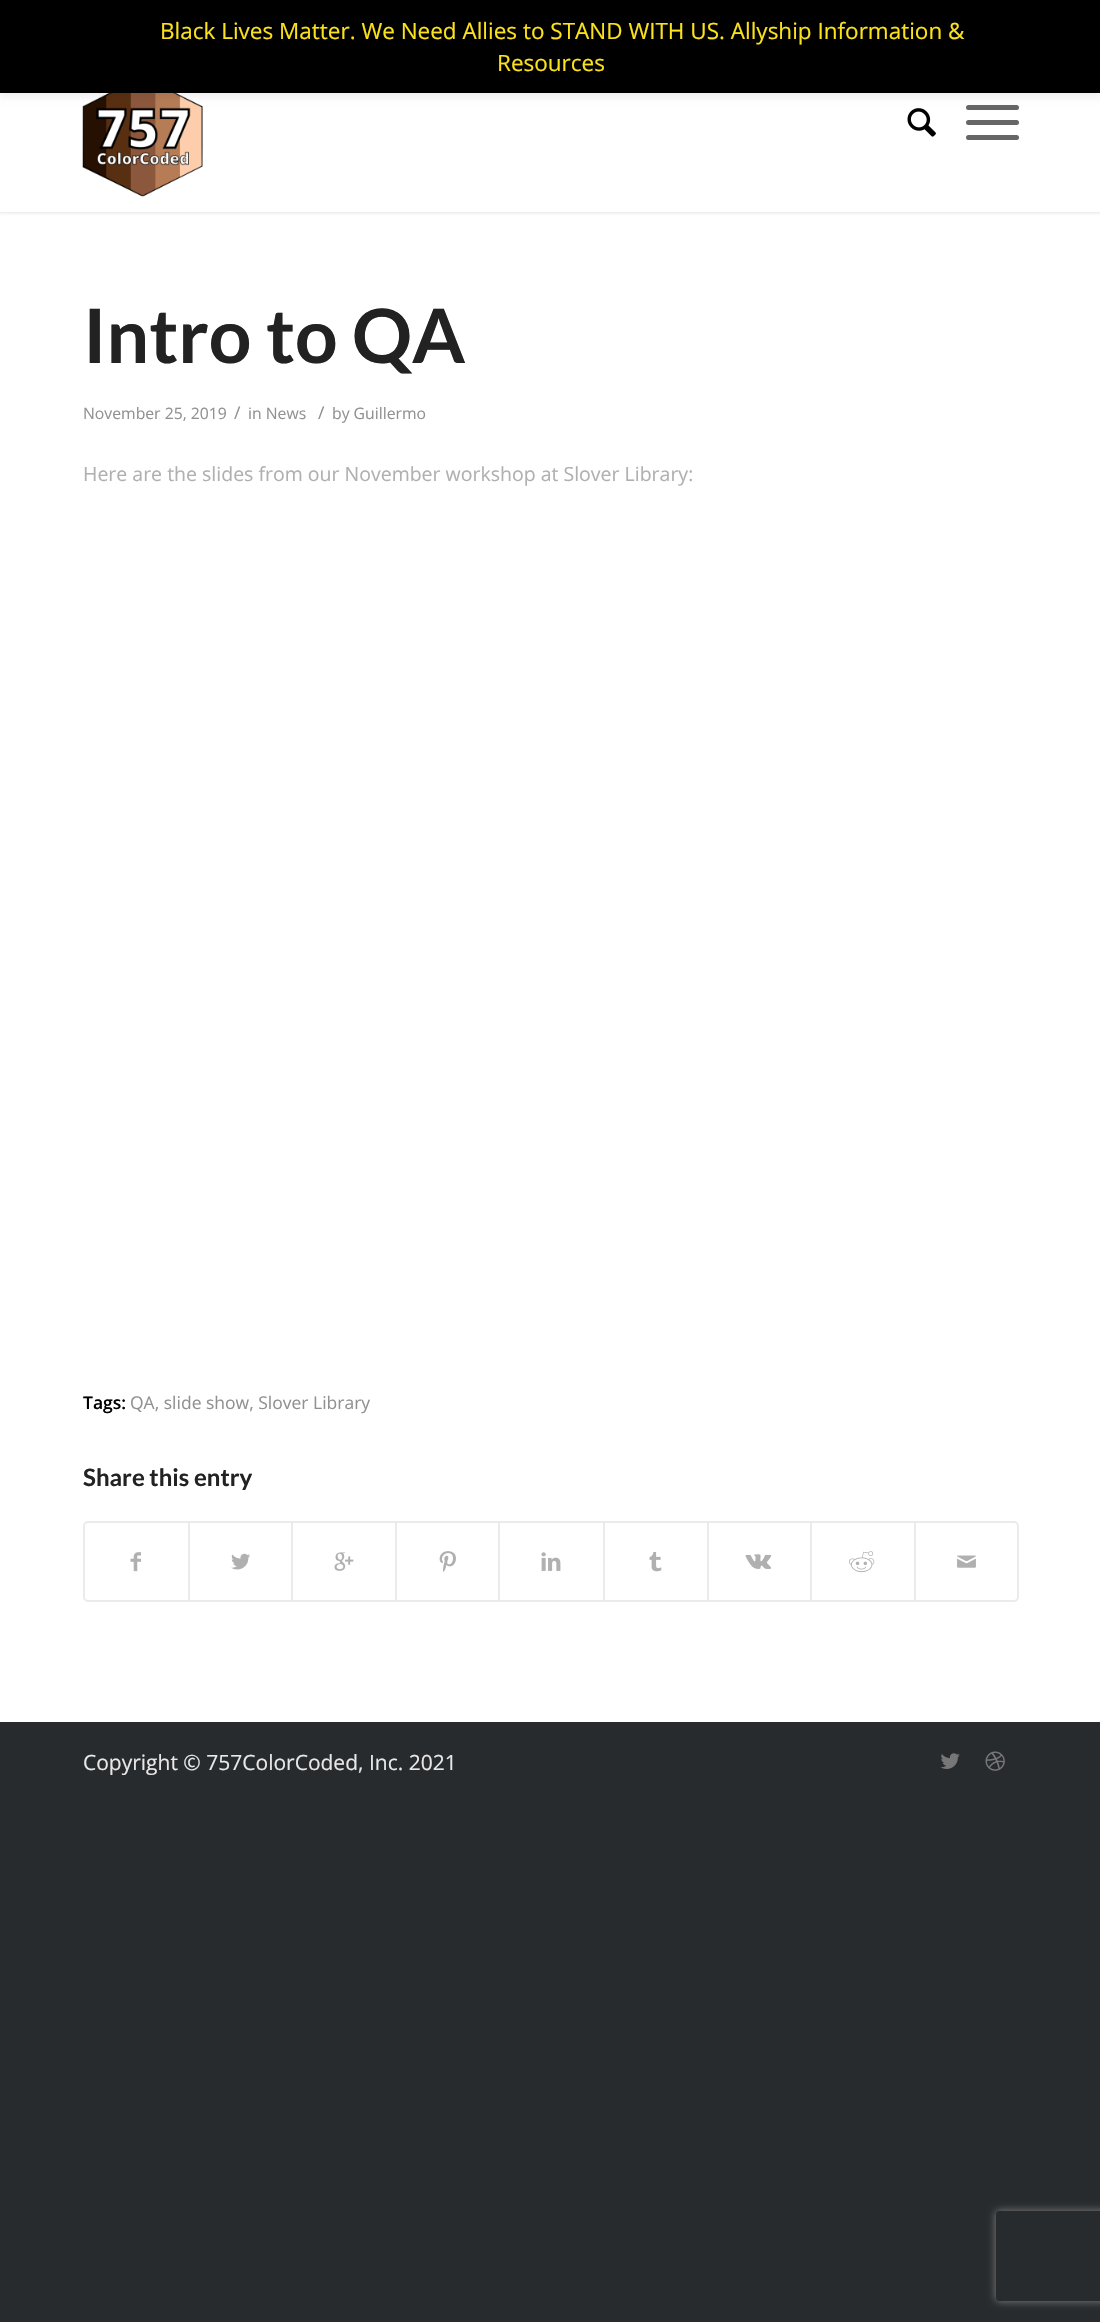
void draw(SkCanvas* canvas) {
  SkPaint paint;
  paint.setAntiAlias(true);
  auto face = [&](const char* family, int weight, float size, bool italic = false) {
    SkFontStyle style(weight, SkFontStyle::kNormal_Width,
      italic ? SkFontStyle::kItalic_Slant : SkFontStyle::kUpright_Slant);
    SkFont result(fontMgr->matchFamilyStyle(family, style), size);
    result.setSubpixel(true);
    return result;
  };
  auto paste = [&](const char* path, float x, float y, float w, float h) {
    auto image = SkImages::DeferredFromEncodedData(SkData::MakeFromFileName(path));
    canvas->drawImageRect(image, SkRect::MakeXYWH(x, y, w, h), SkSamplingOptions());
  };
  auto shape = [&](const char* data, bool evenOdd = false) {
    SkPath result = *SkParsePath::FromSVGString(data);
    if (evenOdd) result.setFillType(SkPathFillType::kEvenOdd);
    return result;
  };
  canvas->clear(0xff282b2e);
  paint.setColor(0xffffffff);
  canvas->drawRect(SkRect::MakeXYWH(0, 212, 1100, 1510), paint);
  paint.setColor(0x1a000000);
  paint.setMaskFilter(SkMaskFilter::MakeBlur(kNormal_SkBlurStyle, 1.5f));
  canvas->drawRect(SkRect::MakeXYWH(-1, 60, 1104, 153), paint);
  paint.setMaskFilter(nullptr);
  paint.setColor(0xffffffff);
  canvas->drawRect(SkRect::MakeXYWH(0, 93, 1100, 119), paint);
  paste("img/1.png", 82, 93, 121, 104);
  paint.setColor(0xff666666);
  canvas->drawRoundRect(SkRect::MakeXYWH(966, 105, 53, 5), 2.5f, 2.5f, paint);
  paint.setColor(0x0d000000);
  paint.setMaskFilter(SkMaskFilter::MakeBlur(kNormal_SkBlurStyle, 3));
  canvas->drawRect(SkRect::MakeXYWH(0, 5, 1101, 93), paint);
  paint.setMaskFilter(nullptr);
  paint.setColor(0xff000000);
  canvas->drawRect(SkRect::MakeXYWH(0, 0, 1100, 93), paint);
  paste("img/2.png", 907, 108, 29, 29);
  paint.setColor(0xff666666);
  canvas->drawRoundRect(SkRect::MakeXYWH(966, 120, 53, 5), 2.5f, 2.5f, paint);
  canvas->drawRoundRect(SkRect::MakeXYWH(966, 135, 53, 5), 2.5f, 2.5f, paint);
  paint.setStroke(true);
  paint.setStrokeWidth(2);
  paint.setColor(0xffebebeb);
  canvas->drawRoundRect(SkRect::MakeXYWH(84, 1522, 934, 79), 4, 4, paint);
  paste("img/3.png", 130, 1552, 11, 20);
  paint.setStroke(false);
  canvas->drawRect(SkRect::MakeXYWH(188, 1523, 2, 78), paint);
  paste("img/4.png", 231, 1553, 19, 17);
  canvas->drawRect(SkRect::MakeXYWH(291, 1523, 2, 78), paint);
  paste("img/5.png", 334, 1552, 20, 19);
  canvas->drawRect(SkRect::MakeXYWH(395, 1523, 2, 78), paint);
  paste("img/6.png", 439, 1551, 17, 21);
  canvas->drawRect(SkRect::MakeXYWH(498, 1523, 2, 78), paint);
  paste("img/7.png", 541, 1552, 20, 19);
  canvas->drawRect(SkRect::MakeXYWH(603, 1523, 2, 78), paint);
  paste("img/8.png", 649, 1552, 13, 20);
  canvas->drawRect(SkRect::MakeXYWH(707, 1523, 2, 78), paint);
  paste("img/9.png", 745, 1554, 27, 15);
  canvas->drawRect(SkRect::MakeXYWH(810, 1523, 2, 78), paint);
  paste("img/10.png", 849, 1551, 26, 22);
  canvas->drawRect(SkRect::MakeXYWH(914, 1523, 2, 78), paint);
  paste("img/11.png", 957, 1555, 19, 13);
  paste("img/12.png", 940, 1753, 20, 16);
  paste("img/13.png", 985, 1751, 20, 20);
  canvas->save();
  canvas->clipPath(shape("M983 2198H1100V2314H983ZM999 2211H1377C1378.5 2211 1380 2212.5 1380 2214V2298C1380 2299.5 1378.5 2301 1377 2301H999C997.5 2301 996 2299.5 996 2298V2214C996 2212.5 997.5 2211 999 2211Z", true), true);
  paint.setColor(0xff808080);
  paint.setMaskFilter(SkMaskFilter::MakeBlur(kNormal_SkBlurStyle, 4));
  canvas->drawRoundRect(SkRect::MakeXYWH(996, 2211, 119, 90), 3, 3, paint);
  paint.setMaskFilter(nullptr);
  canvas->restore();
  auto f0 = face("Open Sans", 400, 22.5f);
  paint.setColor(0xfffce21b);
  canvas->drawString("Black Lives Matter. We Need Allies to STAND WITH US. Allyship Information &", 160, 39, f0, paint);
  canvas->drawString("Resources", 497, 71, f0, paint);
  auto f1 = face("Lato", 700, 75);
  paint.setColor(0xff222222);
  canvas->drawString("Intro to QA", 83, 363, f1, paint);
  auto f2 = face("Open Sans", 400, 15.75f);
  paint.setColor(0xff919191);
  canvas->drawString("November 25, 2019", 83, 419, f2, paint);
  auto f3 = face("Open Sans", 400, 17.5f);
  canvas->drawString("/", 234, 419, f3, paint);
  canvas->drawString("in News", 248, 419, f2, paint);
  canvas->drawString("/", 318, 419, f3, paint);
  canvas->drawString("by Guillermo", 332, 419, f2, paint);
  auto f4 = face("Open Sans", 400, 19.5f);
  paint.setColor(0xffb0b0b0);
  canvas->drawString("Here are the slides from our November workshop at Slover Library:", 83, 481, f4, paint);
  auto f5 = face("Open Sans", 600, 17.5f);
  paint.setColor(0xff000000);
  canvas->drawString("Tags:", 83, 1409, f5, paint);
  paint.setColor(0xff919191);
  canvas->drawString("QA, slide show, Slover Library", 130, 1409, f3, paint);
  auto f6 = face("Lato", 700, 24);
  paint.setColor(0xff222222);
  canvas->drawString("Share this entry", 83, 1486, f6, paint);
  auto f7 = face("Open Sans", 400, 21);
  paint.setColor(0xffe8e8e8);
  canvas->drawString("Copyright © 757ColorCoded, Inc. 2021", 83, 1770, f7, paint);
}
